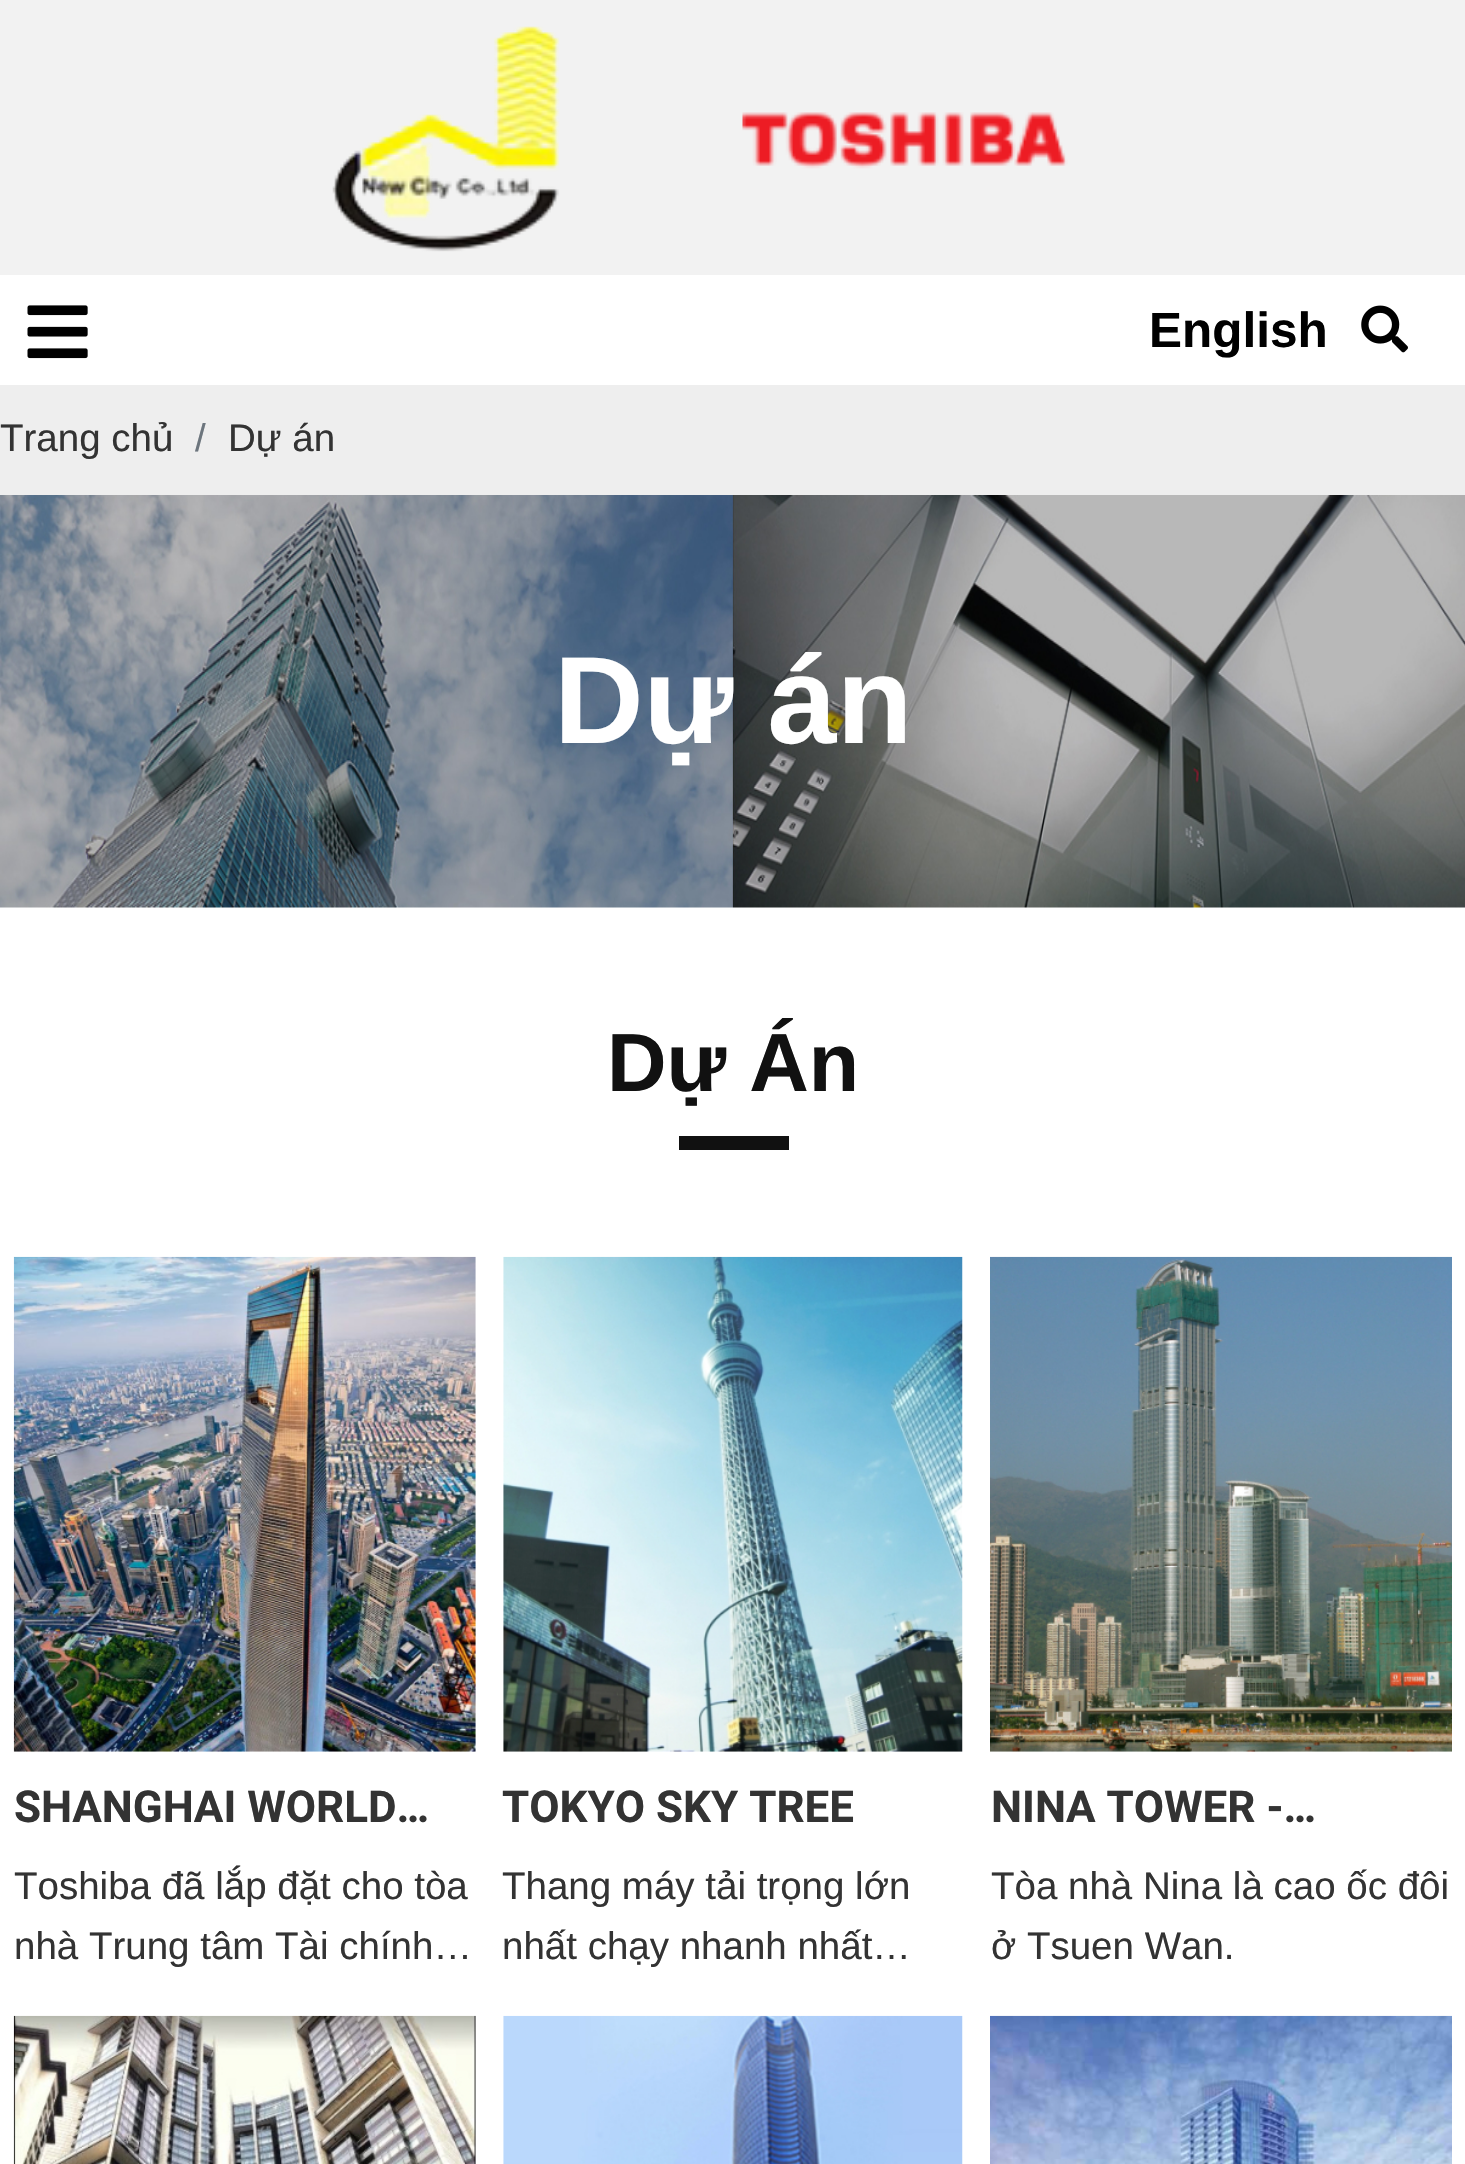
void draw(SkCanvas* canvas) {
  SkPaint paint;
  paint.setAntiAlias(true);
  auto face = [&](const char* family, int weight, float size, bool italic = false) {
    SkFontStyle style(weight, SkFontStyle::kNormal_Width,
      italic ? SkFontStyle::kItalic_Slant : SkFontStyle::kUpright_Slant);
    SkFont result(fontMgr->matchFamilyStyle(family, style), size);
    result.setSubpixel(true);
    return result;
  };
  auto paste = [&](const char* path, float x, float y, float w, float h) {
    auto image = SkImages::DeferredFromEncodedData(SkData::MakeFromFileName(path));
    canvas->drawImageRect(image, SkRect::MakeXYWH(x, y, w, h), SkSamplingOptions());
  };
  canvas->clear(0xffffffff);
  paint.setColor(0xfff2f2f2);
  canvas->drawRect(SkRect::MakeXYWH(0, 0, 1465, 275), paint);
  paste("img/1.png", 332, 26, 228, 226);
  paste("img/2.png", 742, 112, 326, 57);
  paste("img/3.png", 27, 305, 61, 54);
  paste("img/4.png", 1361, 305, 47, 48);
  paint.setColor(0xffeeeeee);
  canvas->drawRect(SkRect::MakeXYWH(0, 385, 1465, 110), paint);
  paste("img/5.png", 0, 495, 1465, 413);
  paint.setColor(0xff111111);
  canvas->drawRect(SkRect::MakeXYWH(679, 1136, 110, 14), paint);
  paste("img/6.png", 13, 1256, 463, 496);
  paste("img/7.png", 503, 1256, 460, 496);
  paste("img/8.png", 990, 1256, 462, 496);
  paste("img/9.png", 13, 2015, 463, 149);
  paste("img/10.png", 503, 2015, 460, 149);
  paste("img/11.png", 990, 2015, 462, 149);
  auto f0 = face("Liberation Sans", 700, 49.5f);
  paint.setColor(0xff000000);
  canvas->drawString("English", 1149, 347, f0, paint);
  auto f1 = face("Liberation Sans", 400, 38.5f);
  paint.setColor(0xff333333);
  canvas->drawString("Trang chủ", 0, 451, f1, paint);
  paint.setColor(0xff6c757d);
  canvas->drawString("/", 195, 451, f1, paint);
  paint.setColor(0xff333333);
  canvas->drawString("Dự án", 228, 451, f1, paint);
  auto f2 = face("Liberation Sans", 700, 124);
  paint.setColor(0xffffffff);
  canvas->drawString("Dự án", 554, 743, f2, paint);
  auto f3 = face("Liberation Sans", 700, 82.5f);
  paint.setColor(0xff111111);
  canvas->drawString("Dự Án", 607, 1091, f3, paint);
  auto f4 = face("Roboto", 700, 44);
  paint.setColor(0xff333333);
  canvas->drawString("SHANGHAI WORLD…", 14, 1822, f4, paint);
  canvas->drawString("Toshiba đã lắp đặt cho tòa", 14, 1899, f1, paint);
  canvas->drawString("nhà Trung tâm Tài chính…", 14, 1959, f1, paint);
  canvas->drawString("TOKYO SKY TREE", 502, 1822, f4, paint);
  canvas->drawString("Thang máy tải trọng lớn", 502, 1899, f1, paint);
  canvas->drawString("nhất chạy nhanh nhất…", 502, 1959, f1, paint);
  canvas->drawString("NINA TOWER -…", 991, 1822, f4, paint);
  canvas->drawString("Tòa nhà Nina là cao ốc đôi", 991, 1899, f1, paint);
  canvas->drawString("ở Tsuen Wan.", 991, 1959, f1, paint);
}
